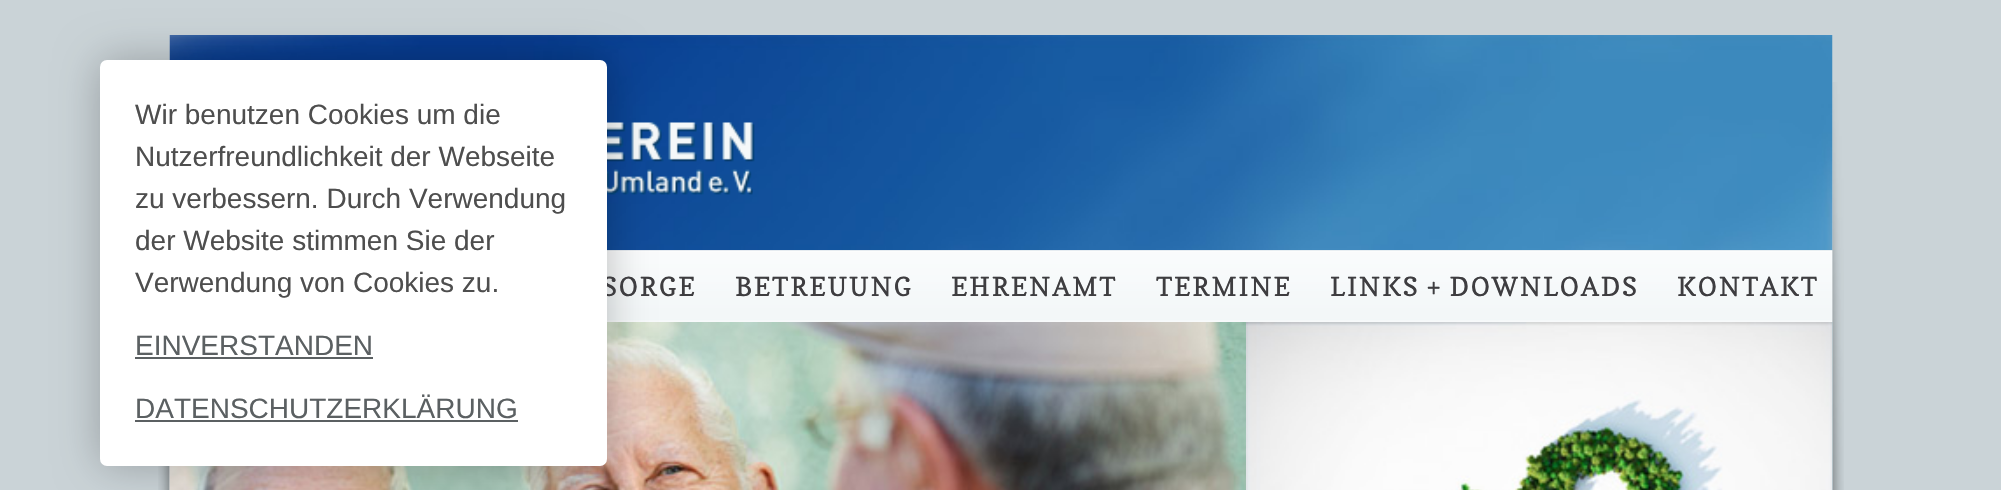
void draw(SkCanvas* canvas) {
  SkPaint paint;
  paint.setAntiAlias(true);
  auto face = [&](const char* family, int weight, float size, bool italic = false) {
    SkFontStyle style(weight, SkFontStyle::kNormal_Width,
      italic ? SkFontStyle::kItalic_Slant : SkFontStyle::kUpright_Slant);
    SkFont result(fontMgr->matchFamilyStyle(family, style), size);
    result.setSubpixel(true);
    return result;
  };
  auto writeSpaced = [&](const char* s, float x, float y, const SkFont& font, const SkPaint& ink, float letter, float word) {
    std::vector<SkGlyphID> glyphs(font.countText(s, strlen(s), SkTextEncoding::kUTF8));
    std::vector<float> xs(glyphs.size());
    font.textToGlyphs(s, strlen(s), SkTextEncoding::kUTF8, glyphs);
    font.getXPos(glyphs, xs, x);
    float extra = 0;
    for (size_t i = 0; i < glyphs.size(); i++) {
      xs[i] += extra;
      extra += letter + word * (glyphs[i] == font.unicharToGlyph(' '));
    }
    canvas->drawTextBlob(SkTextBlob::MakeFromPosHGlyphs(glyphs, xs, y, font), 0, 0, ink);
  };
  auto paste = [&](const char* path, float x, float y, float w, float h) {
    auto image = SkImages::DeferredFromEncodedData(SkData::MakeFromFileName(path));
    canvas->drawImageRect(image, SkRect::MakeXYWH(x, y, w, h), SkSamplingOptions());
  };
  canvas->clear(0xffcad3d7);
  paste("img/1.png", 158, 82, 1686, 408);
  paste("img/2.png", 169, 35, 1664, 216);
  paste("img/3.png", 607, 122, 148, 73);
  paste("img/4.png", 607, 250, 1226, 72);
  paste("img/5.png", 169, 322, 1664, 168);
  paste("img/7.png", 169, 322, 1077, 168);
  paint.setColor(0x40000000);
  paint.setMaskFilter(SkMaskFilter::MakeBlur(kNormal_SkBlurStyle, 22));
  canvas->drawRoundRect(SkRect::MakeXYWH(100, 60, 507, 406), 7, 7, paint);
  paint.setMaskFilter(nullptr);
  paste("img/6.png", 1246, 322, 587, 168);
  auto f0 = face("Copse", 400, 26.25f);
  paint.setColor(0xff3e3d40);
  writeSpaced("SORGE", 602, 296, f0, paint, 1.75f, 0);
  paint.setColor(0xffffffff);
  canvas->drawRoundRect(SkRect::MakeXYWH(100, 60, 507, 406), 7, 7, paint);
  auto f1 = face("Liberation Sans", 400, 28);
  paint.setColor(0xff5b6062);
  canvas->drawString("DATENSCHUTZERKLÄRUNG", 135, 418, f1, paint);
  canvas->drawRect(SkRect::MakeXYWH(135, 420, 383, 2), paint);
  canvas->drawString("EINVERSTANDEN", 135, 355, f1, paint);
  canvas->drawRect(SkRect::MakeXYWH(135, 357, 238, 2), paint);
  paint.setColor(0xff4e4e4e);
  {
    const struct { const char* s; float x, y; } items[] = {
      {"Verwendung von Cookies zu.", 135, 292},
      {"der Website stimmen Sie der", 135, 250},
      {"zu verbessern. Durch Verwendung", 135, 208},
      {"Nutzerfreundlichkeit der Webseite", 135, 166},
      {"Wir benutzen Cookies um die", 135, 124},
    };
    for (auto [s, x, y] : items) {
      canvas->drawString(s, x, y, f1, paint);
    }
  }
  paint.setColor(0xff3e3d40);
  {
    const struct { const char* s; float x, y; } items[] = {
      {"BETREUUNG", 735, 296},
      {"EHRENAMT", 951, 296},
      {"TERMINE", 1156, 296},
      {"LINKS + DOWNLOADS", 1330, 296},
      {"KONTAKT", 1677, 296},
    };
    for (auto [s, x, y] : items) {
      writeSpaced(s, x, y, f0, paint, 1.75f, 0);
    }
  }
}
